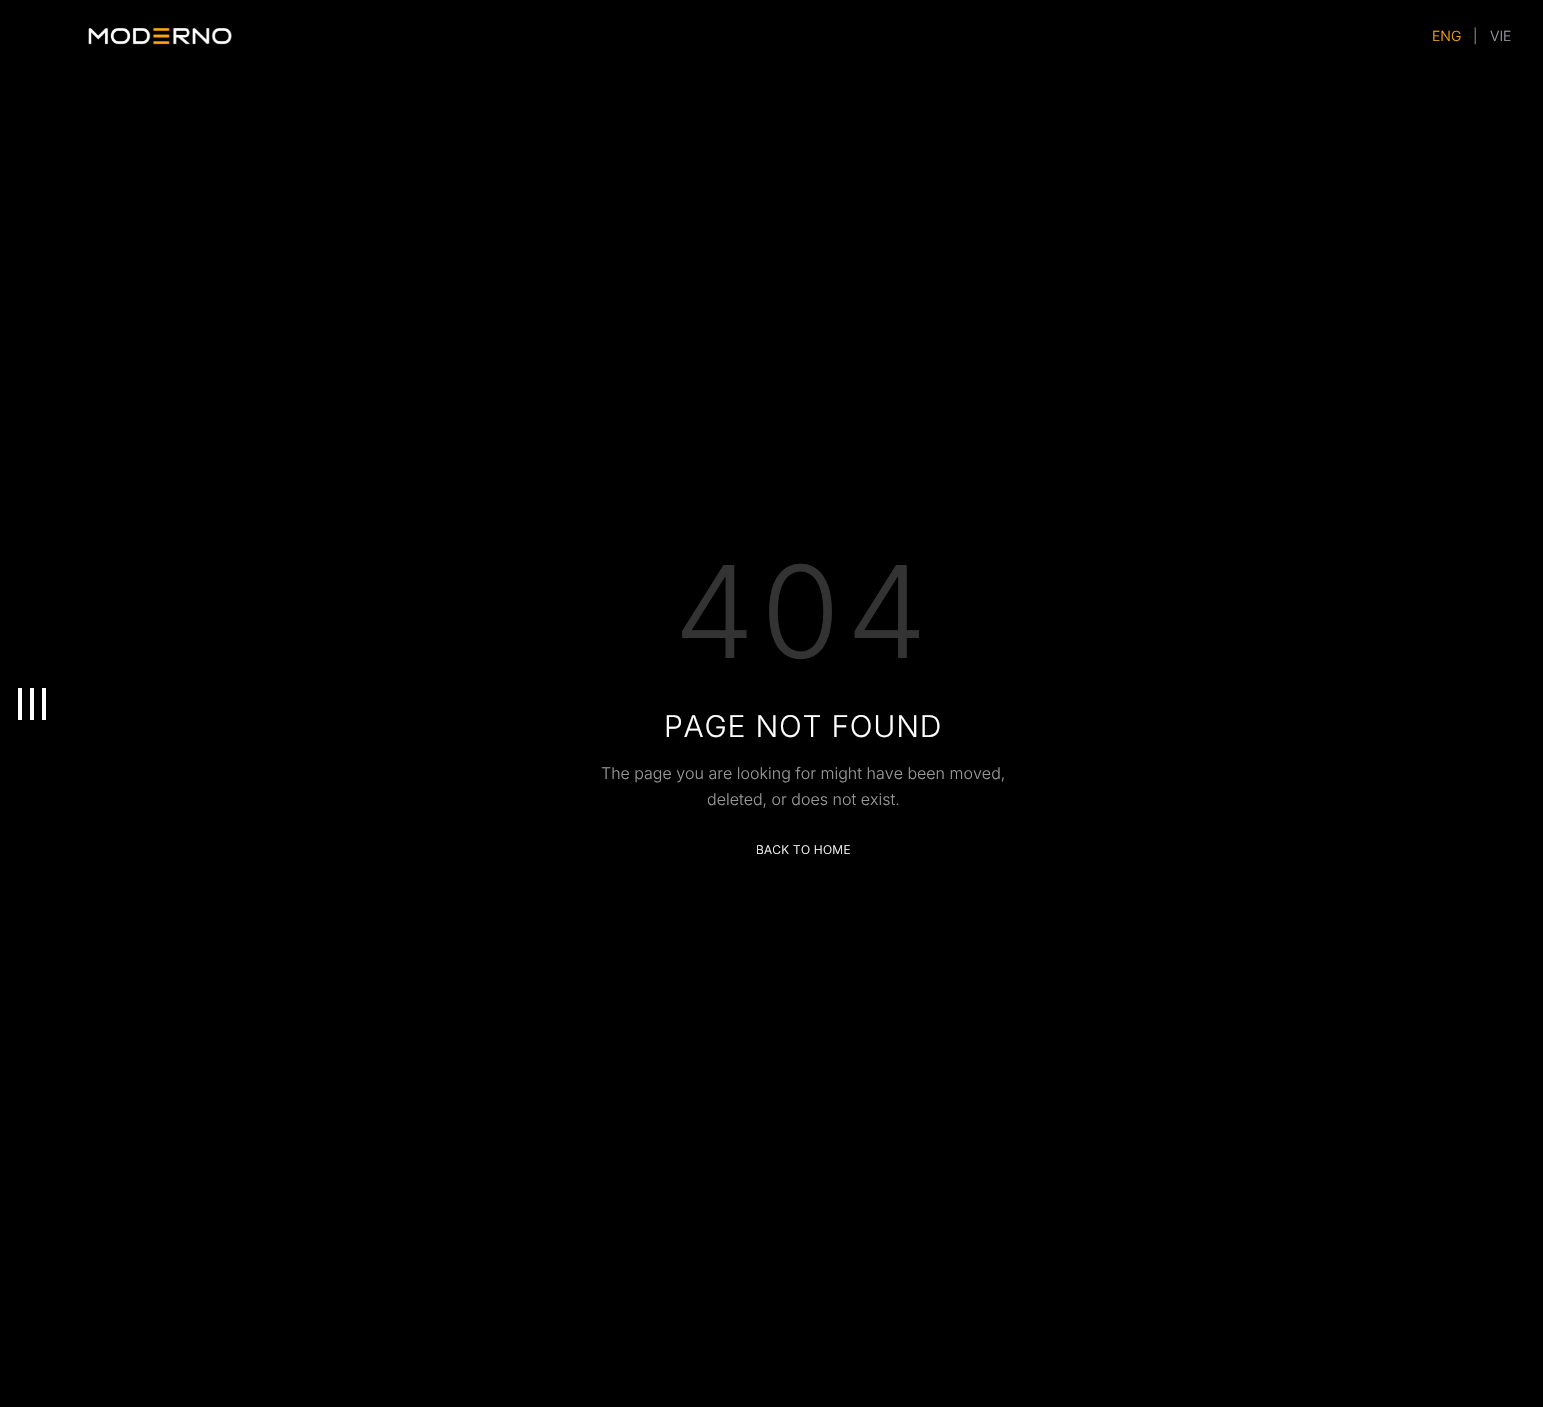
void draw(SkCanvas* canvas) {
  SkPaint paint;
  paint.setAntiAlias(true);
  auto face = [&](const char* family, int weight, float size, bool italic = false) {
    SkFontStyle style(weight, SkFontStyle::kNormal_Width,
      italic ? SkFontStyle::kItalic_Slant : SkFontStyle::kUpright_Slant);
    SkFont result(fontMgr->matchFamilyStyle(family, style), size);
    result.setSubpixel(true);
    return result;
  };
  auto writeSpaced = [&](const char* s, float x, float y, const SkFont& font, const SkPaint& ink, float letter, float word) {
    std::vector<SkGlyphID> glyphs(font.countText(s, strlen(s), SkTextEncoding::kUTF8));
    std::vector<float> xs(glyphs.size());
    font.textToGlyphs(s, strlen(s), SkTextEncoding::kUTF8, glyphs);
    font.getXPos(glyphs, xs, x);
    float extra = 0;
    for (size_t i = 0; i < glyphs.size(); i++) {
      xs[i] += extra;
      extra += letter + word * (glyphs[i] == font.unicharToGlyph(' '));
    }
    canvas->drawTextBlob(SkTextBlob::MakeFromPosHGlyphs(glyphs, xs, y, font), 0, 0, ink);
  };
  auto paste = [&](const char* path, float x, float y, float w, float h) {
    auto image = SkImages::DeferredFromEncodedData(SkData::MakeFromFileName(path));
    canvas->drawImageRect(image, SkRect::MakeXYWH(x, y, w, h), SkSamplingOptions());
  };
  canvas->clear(0xff000000);
  paste("img/1.png", 88, 28, 144, 17);
  {
    const struct { float x, y, w, h; SkColor color; } items[] = {
      {18, 688, 4, 32, 0xffffffff},
      {30, 688, 4, 32, 0xffffffff},
      {42, 688, 4, 32, 0xffffffff},
    };
    for (auto [x, y, w, h, color] : items) {
      paint.setColor(color);
      canvas->drawRect(SkRect::MakeXYWH(x, y, w, h), paint);
    }
  }
  auto f0 = face("Inter", 300, 14);
  paint.setColor(0xfffaa819);
  canvas->drawString("ENG", 1432, 41, f0, paint);
  paint.setColor(0xff999999);
  canvas->drawString("|", 1473, 41, f0, paint);
  paint.setColor(0xffa1a1aa);
  canvas->drawString("VIE", 1490, 41, f0, paint);
  auto f1 = face("Inter", 300, 128);
  paint.setColor(0xff333333);
  writeSpaced("404", 674, 658, f1, paint, 6.5f, 0);
  auto f2 = face("Inter", 300, 30);
  paint.setColor(0xffffffff);
  writeSpaced("PAGE NOT FOUND", 664, 737, f2, paint, 0.75f, 0);
  auto f3 = face("Inter", 300, 16);
  paint.setColor(0xff999999);
  canvas->drawString("The page you are looking for might have been moved,", 601, 779, f3, paint);
  canvas->drawString("deleted, or does not exist.", 707, 805, f3, paint);
  auto f4 = face("Inter", 300, 12);
  paint.setColor(0xffffffff);
  writeSpaced("BACK TO HOME", 756, 854, f4, paint, 0.25f, 0);
}
